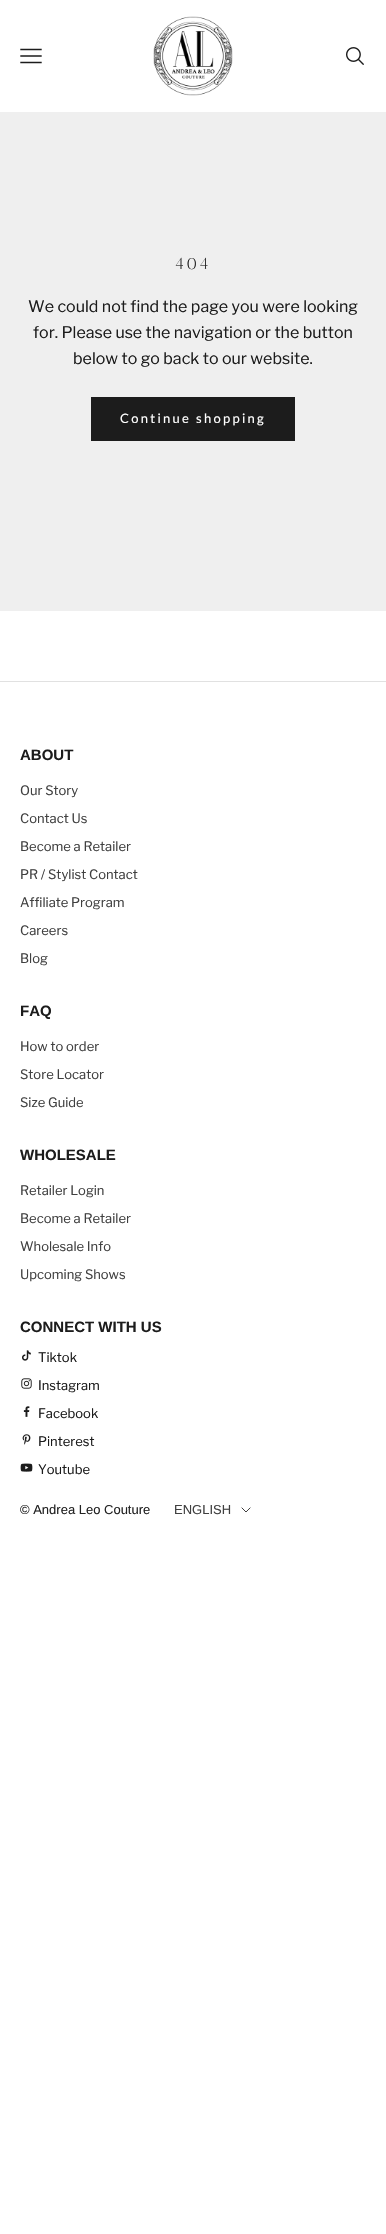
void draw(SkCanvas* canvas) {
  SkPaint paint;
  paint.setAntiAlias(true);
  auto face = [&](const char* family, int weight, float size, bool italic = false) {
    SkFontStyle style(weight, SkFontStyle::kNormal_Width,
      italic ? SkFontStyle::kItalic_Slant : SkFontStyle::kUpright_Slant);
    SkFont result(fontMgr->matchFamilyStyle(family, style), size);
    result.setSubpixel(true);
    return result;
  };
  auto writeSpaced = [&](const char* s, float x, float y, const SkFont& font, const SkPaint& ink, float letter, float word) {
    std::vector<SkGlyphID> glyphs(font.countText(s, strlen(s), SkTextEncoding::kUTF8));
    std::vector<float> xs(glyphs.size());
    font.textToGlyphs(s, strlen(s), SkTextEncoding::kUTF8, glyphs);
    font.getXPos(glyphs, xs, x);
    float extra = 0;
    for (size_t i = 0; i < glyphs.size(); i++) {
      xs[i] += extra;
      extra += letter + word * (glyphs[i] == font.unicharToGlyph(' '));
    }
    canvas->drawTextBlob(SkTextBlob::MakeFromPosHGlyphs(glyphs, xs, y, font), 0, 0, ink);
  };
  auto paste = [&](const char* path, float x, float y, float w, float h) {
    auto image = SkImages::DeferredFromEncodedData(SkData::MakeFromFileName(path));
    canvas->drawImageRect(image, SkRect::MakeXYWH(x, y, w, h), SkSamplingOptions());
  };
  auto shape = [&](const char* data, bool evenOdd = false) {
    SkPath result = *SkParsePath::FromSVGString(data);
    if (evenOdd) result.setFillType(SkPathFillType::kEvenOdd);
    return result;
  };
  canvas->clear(0xffffffff);
  paint.setStroke(true);
  paint.setStrokeWidth(1.4f);
  paint.setStrokeCap(SkPaint::kSquare_Cap);
  paint.setColor(0xff1c1c1c);
  canvas->drawPath(shape("M21 62.5H41M21 56H41M21 49.5H41"), paint);
  paste("img/1.png", 153, 16, 80, 80);
  paste("img/2.png", 346, 47, 18, 18);
  paint.setStroke(false);
  paint.setColor(0xffefefef);
  canvas->drawRect(SkRect::MakeXYWH(0, 112, 386, 499), paint);
  paint.setColor(0xff1c1c1c);
  canvas->drawRect(SkRect::MakeXYWH(91.5f, 397.5f, 203, 43), paint);
  paint.setStroke(true);
  paint.setStrokeWidth(1);
  paint.setStrokeCap(SkPaint::kButt_Cap);
  canvas->drawRect(SkRect::MakeXYWH(91.5f, 397.5f, 203, 43), paint);
  paint.setStroke(false);
  paint.setColor(0xffe1e1e1);
  canvas->drawRect(SkRect::MakeXYWH(0, 681, 386, 1), paint);
  paste("img/3.png", 22, 1350, 9, 11);
  paste("img/4.png", 21, 1378, 11, 11);
  paste("img/5.png", 23, 1406, 7, 11);
  paste("img/6.png", 22, 1434, 9, 11);
  paste("img/7.png", 20, 1463, 13, 9);
  paint.setStroke(true);
  paint.setStrokeCap(SkPaint::kSquare_Cap);
  paint.setColor(0xff403f3f);
  canvas->drawPath(shape("M242 1508L246 1512L250 1508"), paint);
  auto f0 = face("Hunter", 400, 16);
  paint.setStroke(false);
  paint.setColor(0xff1c1c1c);
  writeSpaced("404", 175, 269, f0, paint, 3, 0);
  auto f1 = face("Libre Franklin", 400, 16);
  {
    const struct { const char* s; float x, y; } items[] = {
      {"We could not find the page you were looking", 28, 312},
      {"for. Please use the navigation or the button", 33, 338},
      {"below to go back to our website.", 73, 364},
    };
    for (auto [s, x, y] : items) {
      canvas->drawString(s, x, y, f1, paint);
    }
  }
  auto f2 = face("Lato", 400, 13);
  paint.setColor(0xffffffff);
  writeSpaced("Continue shopping", 120, 423, f2, paint, 2.3f, 0);
  auto f3 = face("Liberation Sans", 700, 15);
  paint.setColor(0xff1c1c1c);
  canvas->drawString("ABOUT", 20, 760, f3, paint);
  auto f4 = face("Libre Franklin", 400, 13);
  paint.setColor(0xff404040);
  {
    const struct { const char* s; float x, y; } items[] = {
      {"Our Story", 20, 795},
      {"Contact Us", 20, 823},
      {"Become a Retailer", 20, 851},
      {"PR / Stylist Contact", 20, 879},
      {"Affiliate Program", 20, 907},
      {"Careers", 20, 935},
      {"Blog", 20, 963},
    };
    for (auto [s, x, y] : items) {
      canvas->drawString(s, x, y, f4, paint);
    }
  }
  paint.setColor(0xff1c1c1c);
  canvas->drawString("FAQ", 20, 1016, f3, paint);
  paint.setColor(0xff404040);
  {
    const struct { const char* s; float x, y; } items[] = {
      {"How to order", 20, 1051},
      {"Store Locator", 20, 1079},
      {"Size Guide", 20, 1107},
    };
    for (auto [s, x, y] : items) {
      canvas->drawString(s, x, y, f4, paint);
    }
  }
  paint.setColor(0xff1c1c1c);
  canvas->drawString("WHOLESALE", 20, 1160, f3, paint);
  paint.setColor(0xff404040);
  {
    const struct { const char* s; float x, y; } items[] = {
      {"Retailer Login", 20, 1195},
      {"Become a Retailer", 20, 1223},
      {"Wholesale Info", 20, 1251},
      {"Upcoming Shows", 20, 1279},
    };
    for (auto [s, x, y] : items) {
      canvas->drawString(s, x, y, f4, paint);
    }
  }
  paint.setColor(0xff1c1c1c);
  canvas->drawString("CONNECT WITH US", 20, 1332, f3, paint);
  {
    const struct { const char* s; float x, y; } items[] = {
      {"Tiktok", 38, 1362},
      {"Instagram", 38, 1390},
      {"Facebook", 38, 1418},
      {"Pinterest", 38, 1446},
      {"Youtube", 38, 1474},
    };
    for (auto [s, x, y] : items) {
      canvas->drawString(s, x, y, f4, paint);
    }
  }
  auto f5 = face("Liberation Sans", 400, 13);
  paint.setColor(0xff222222);
  canvas->drawString("© Andrea Leo Couture", 20, 1514, f5, paint);
  paint.setColor(0xff404040);
  canvas->drawString("ENGLISH", 174, 1514, f5, paint);
}
